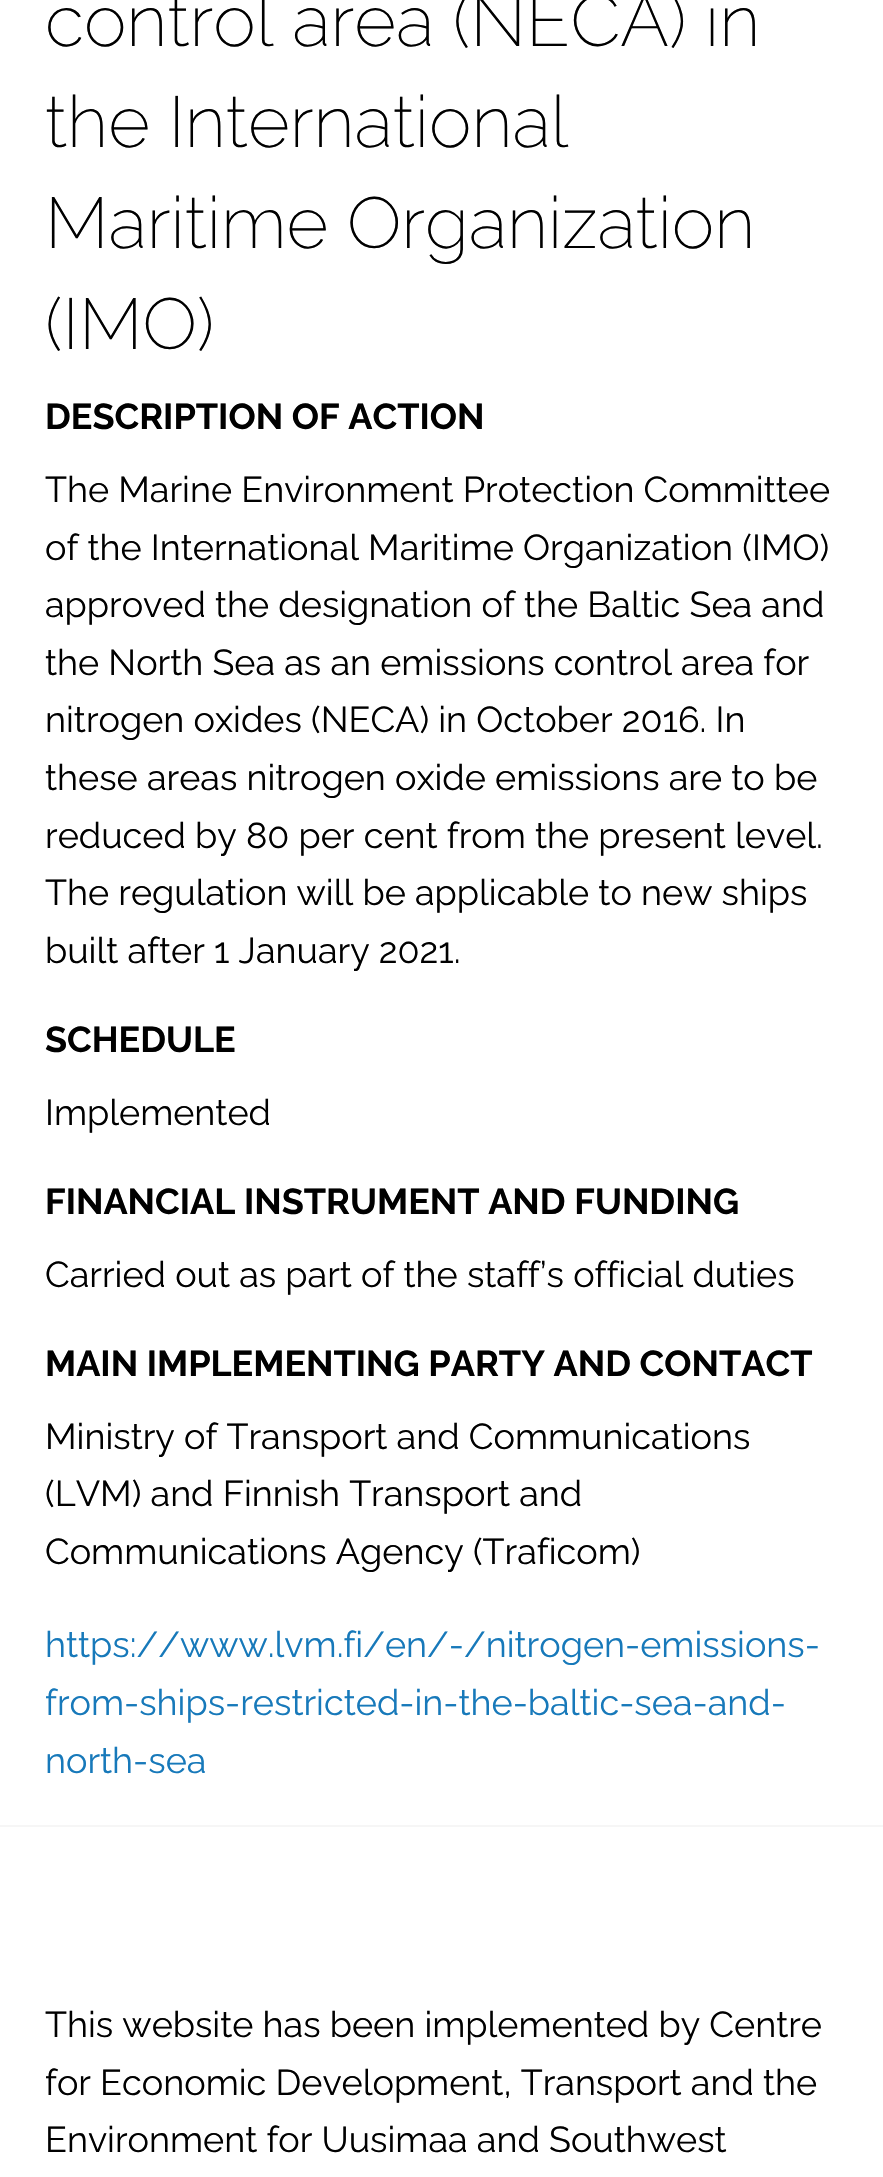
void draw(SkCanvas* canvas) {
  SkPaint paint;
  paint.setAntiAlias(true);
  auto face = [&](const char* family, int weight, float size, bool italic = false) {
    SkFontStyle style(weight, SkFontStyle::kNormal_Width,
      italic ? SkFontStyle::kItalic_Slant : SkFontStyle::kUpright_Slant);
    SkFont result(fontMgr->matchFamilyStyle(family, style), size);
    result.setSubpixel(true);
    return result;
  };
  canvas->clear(0xffffffff);
  paint.setColor(0xfff6f6f6);
  canvas->drawRect(SkRect::MakeXYWH(0, 1825, 883, 2), paint);
  auto f0 = face("Raleway", 200, 72);
  paint.setColor(0xff000000);
  {
    const struct { const char* s; float x, y; } items[] = {
      {"control area (NECA) in", 45, 46},
      {"the International", 45, 147},
      {"Maritime Organization", 45, 248},
      {"(IMO)", 45, 349},
    };
    for (auto [s, x, y] : items) {
      canvas->drawString(s, x, y, f0, paint);
    }
  }
  auto f1 = face("Raleway", 700, 36);
  canvas->drawString("DESCRIPTION OF ACTION", 45, 429, f1, paint);
  auto f2 = face("Raleway", 400, 36);
  {
    const struct { const char* s; float x, y; } items[] = {
      {"The Marine Environment Protection Committee", 45, 502},
      {"of the International Maritime Organization (IMO)", 45, 560},
      {"approved the designation of the Baltic Sea and", 45, 617},
      {"the North Sea as an emissions control area for", 45, 675},
      {"nitrogen oxides (NECA) in October 2016. In", 45, 732},
      {"these areas nitrogen oxide emissions are to be", 45, 790},
      {"reduced by 80 per cent from the present level.", 45, 848},
      {"The regulation will be applicable to new ships", 45, 905},
      {"built after 1 January 2021.", 45, 963},
    };
    for (auto [s, x, y] : items) {
      canvas->drawString(s, x, y, f2, paint);
    }
  }
  canvas->drawString("SCHEDULE", 45, 1052, f1, paint);
  canvas->drawString("Implemented", 45, 1125, f2, paint);
  canvas->drawString("FINANCIAL INSTRUMENT AND FUNDING", 45, 1214, f1, paint);
  canvas->drawString("Carried out as part of the staff’s official duties", 45, 1287, f2, paint);
  canvas->drawString("MAIN IMPLEMENTING PARTY AND CONTACT", 45, 1376, f1, paint);
  {
    const struct { const char* s; float x, y; } items[] = {
      {"Ministry of Transport and Communications", 45, 1449},
      {"(LVM) and Finnish Transport and", 45, 1506},
      {"Communications Agency (Traficom)", 45, 1564},
    };
    for (auto [s, x, y] : items) {
      canvas->drawString(s, x, y, f2, paint);
    }
  }
  paint.setColor(0xff1779ba);
  {
    const struct { const char* s; float x, y; } items[] = {
      {"https://www.lvm.fi/en/-/nitrogen-emissions-", 45, 1657},
      {"from-ships-restricted-in-the-baltic-sea-and-", 45, 1715},
      {"north-sea", 45, 1773},
    };
    for (auto [s, x, y] : items) {
      canvas->drawString(s, x, y, f2, paint);
    }
  }
  paint.setColor(0xff000000);
  {
    const struct { const char* s; float x, y; } items[] = {
      {"This website has been implemented by Centre", 45, 2037},
      {"for Economic Development, Transport and the", 45, 2095},
      {"Environment for Uusimaa and Southwest", 45, 2152},
    };
    for (auto [s, x, y] : items) {
      canvas->drawString(s, x, y, f2, paint);
    }
  }
}
